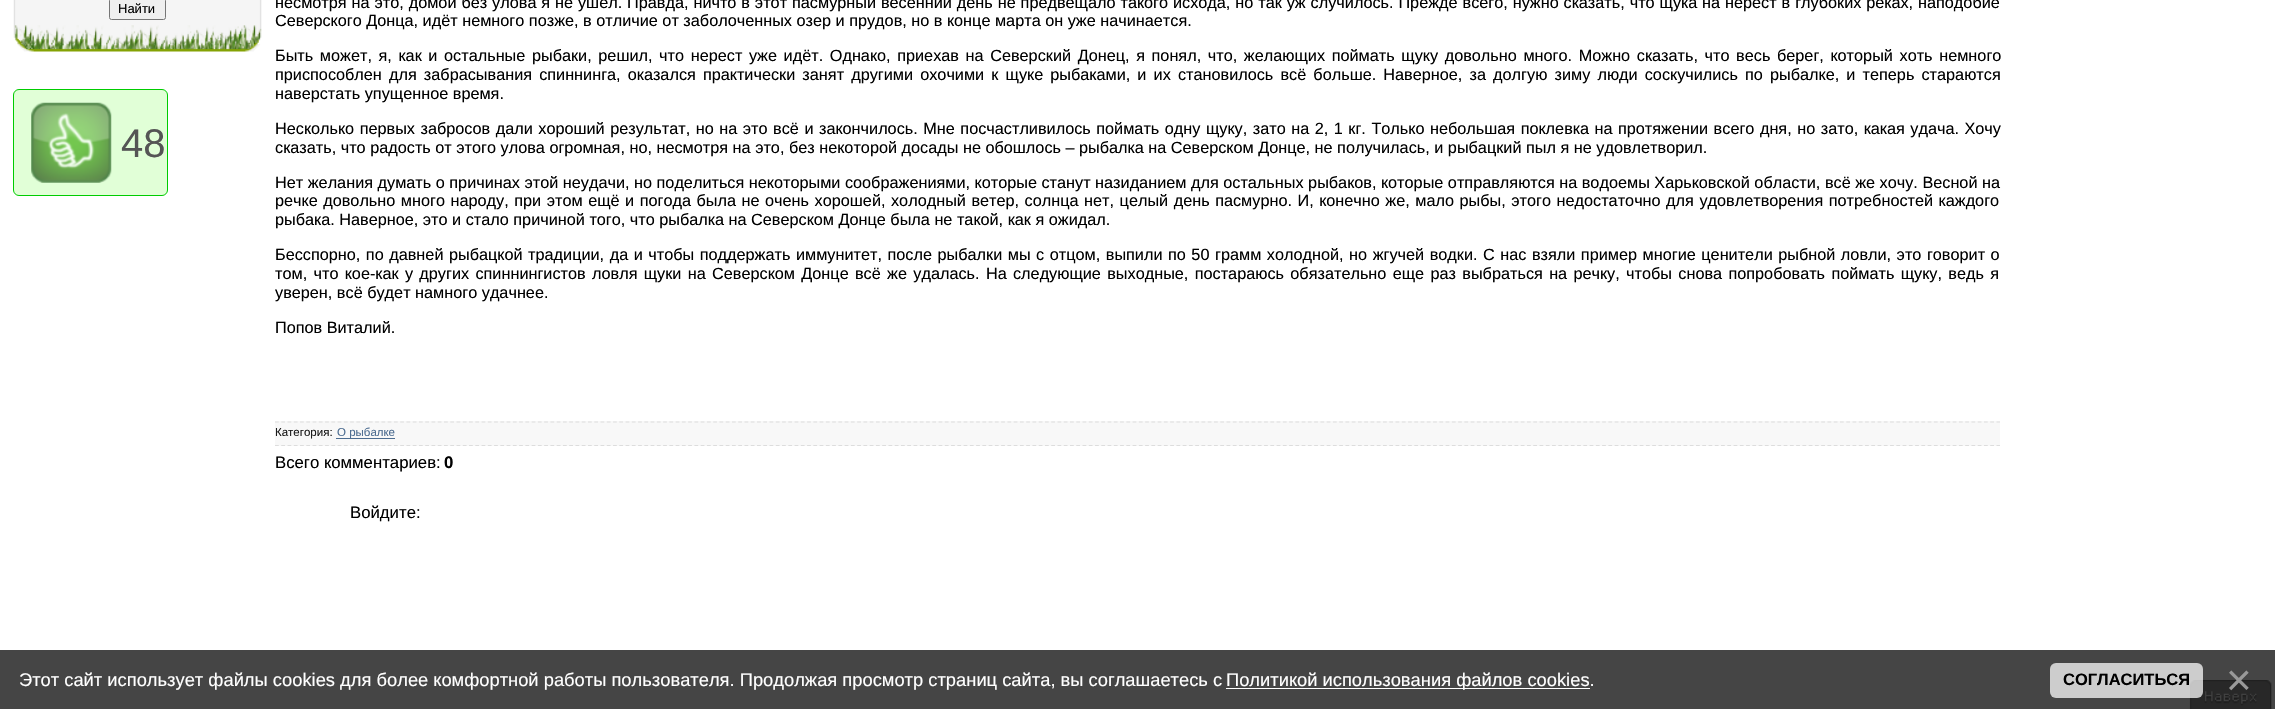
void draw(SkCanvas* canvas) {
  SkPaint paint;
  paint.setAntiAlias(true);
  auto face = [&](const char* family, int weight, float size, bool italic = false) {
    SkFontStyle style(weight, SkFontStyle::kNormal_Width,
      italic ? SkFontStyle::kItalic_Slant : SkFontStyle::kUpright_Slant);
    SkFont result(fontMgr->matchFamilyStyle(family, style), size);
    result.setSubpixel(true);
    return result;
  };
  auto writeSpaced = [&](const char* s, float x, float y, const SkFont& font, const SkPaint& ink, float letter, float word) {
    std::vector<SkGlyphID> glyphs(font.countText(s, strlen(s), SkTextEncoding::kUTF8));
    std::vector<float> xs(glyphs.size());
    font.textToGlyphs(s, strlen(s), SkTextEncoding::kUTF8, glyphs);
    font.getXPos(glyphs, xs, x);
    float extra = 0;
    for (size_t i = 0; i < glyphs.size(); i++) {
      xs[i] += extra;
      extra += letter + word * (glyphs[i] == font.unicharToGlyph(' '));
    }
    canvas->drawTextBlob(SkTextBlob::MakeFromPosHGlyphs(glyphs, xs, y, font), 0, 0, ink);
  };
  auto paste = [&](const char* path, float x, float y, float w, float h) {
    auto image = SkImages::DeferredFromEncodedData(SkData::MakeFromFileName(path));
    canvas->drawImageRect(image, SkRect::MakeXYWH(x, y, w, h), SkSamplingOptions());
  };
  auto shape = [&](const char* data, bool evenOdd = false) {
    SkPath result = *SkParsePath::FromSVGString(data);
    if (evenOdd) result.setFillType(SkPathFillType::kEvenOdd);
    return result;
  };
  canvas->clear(0xffffffff);
  paint.setColor(0xff454545);
  canvas->drawRect(SkRect::MakeXYWH(0, 650, 2275, 59), paint);
  paste("img/1.png", 13, 0, 249, 52);
  paint.setColor(0xffefefef);
  canvas->drawRoundRect(SkRect::MakeXYWH(109.5f, -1.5f, 56, 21), 2, 2, paint);
  paint.setStroke(true);
  paint.setStrokeWidth(1);
  paint.setColor(0xff767676);
  canvas->drawRoundRect(SkRect::MakeXYWH(109.5f, -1.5f, 56, 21), 2, 2, paint);
  paint.setStroke(false);
  paint.setColor(0xffe1ffd7);
  canvas->drawRoundRect(SkRect::MakeXYWH(13.5f, 89.5f, 154, 106), 5.5f, 5.5f, paint);
  paint.setStroke(true);
  paint.setColor(0xff00cc00);
  canvas->drawRoundRect(SkRect::MakeXYWH(13.5f, 89.5f, 154, 106), 5.5f, 5.5f, paint);
  paste("img/2.png", 31, 102, 81, 81);
  paint.setStroke(false);
  paint.setColor(0xfff8f8f8);
  canvas->drawRect(SkRect::MakeXYWH(275, 421, 1725, 25), paint);
  paint.setStroke(true);
  paint.setStrokeWidth(1.2f);
  paint.setColor(0xffdddddd);
  paint.setPathEffect(SkDashPathEffect::Make({{3.75f, 2.51f}}, 0));
  canvas->drawPath(shape("M275 422H2000"), paint);
  paint.setPathEffect(nullptr);
  paint.setPathEffect(SkDashPathEffect::Make({{3.75f, 2.51f}}, 0));
  canvas->drawPath(shape("M275 445.5H2000"), paint);
  paint.setPathEffect(nullptr);
  paint.setStroke(false);
  paint.setColor(0xff4d6d91);
  canvas->drawRect(SkRect::MakeXYWH(336, 438, 59, 1), paint);
  paint.setColor(0xffffffff);
  canvas->drawRect(SkRect::MakeXYWH(1226, 688, 364, 1), paint);
  paste("img/3.png", 2189, 680, 83, 29);
  paint.setColor(0xbaffffff);
  canvas->drawRoundRect(SkRect::MakeXYWH(2050, 663, 153, 35), 6, 6, paint);
  auto f0 = face("Liberation Sans", 400, 13);
  paint.setColor(0xff000000);
  canvas->drawString("Найти", 118, 13, f0, paint);
  auto f1 = face("Liberation Sans", 400, 40);
  paint.setColor(0xff555555);
  canvas->drawString("48", 121, 157, f1, paint);
  auto f2 = face("Liberation Sans", 400, 16.25f);
  paint.setColor(0xff000000);
  writeSpaced("несмотря на это, домой без улова я не ушел. Правда, ничто в этот пасмурный весенний день не предвещало такого исхода, но так уж случилось. Прежде всего, нужно сказать, что щука на нерест в глубоких реках, наподобие", 275, 8, f2, paint, 0, 0.4f);
  canvas->drawString("Северского Донца, идёт немного позже, в отличие от заболоченных озер и прудов, но в конце марта он уже начинается.", 275, 26, f2, paint);
  writeSpaced("Быть может, я, как и остальные рыбаки, решил, что нерест уже идёт. Однако, приехав на Северский Донец, я понял, что, желающих поймать щуку довольно много. Можно сказать, что весь берег, который хоть немного", 275, 61, f2, paint, 0, 2.1f);
  writeSpaced("приспособлен для забрасывания спиннинга, оказался практически занят другими охочими к щуке рыбаками, и их становилось всё больше. Наверное, за долгую зиму люди соскучились по рыбалке, и теперь стараются", 275, 80, f2, paint, 0, 2.6f);
  canvas->drawString("наверстать упущенное время.", 275, 99, f2, paint);
  writeSpaced("Несколько первых забросов дали хороший результат, но на это всё и закончилось. Мне посчастливилось поймать одну щуку, зато на 2, 1 кг. Только небольшая поклевка на протяжении всего дня, но зато, какая удача. Хочу", 275, 134, f2, paint, 0, 1);
  canvas->drawString("сказать, что радость от этого улова огромная, но, несмотря на это, без некоторой досады не обошлось – рыбалка на Северском Донце, не получилась, и рыбацкий пыл я не удовлетворил.", 275, 153, f2, paint);
  canvas->drawString("Нет желания думать о причинах этой неудачи, но поделиться некоторыми соображениями, которые станут назиданием для остальных рыбаков, которые отправляются на водоемы Харьковской области, всё же хочу. Весной на", 275, 188, f2, paint);
  writeSpaced("речке довольно много народу, при этом ещё и погода была не очень хорошей, холодный ветер, солнца нет, целый день пасмурно. И, конечно же, мало рыбы, этого недостаточно для удовлетворения потребностей каждого", 275, 206, f2, paint, 0, 1);
  canvas->drawString("рыбака. Наверное, это и стало причиной того, что рыбалка на Северском Донце была не такой, как я ожидал.", 275, 225, f2, paint);
  writeSpaced("Бесспорно, по давней рыбацкой традиции, да и чтобы поддержать иммунитет, после рыбалки мы с отцом, выпили по 50 грамм холодной, но жгучей водки. С нас взяли пример многие ценители рыбной ловли, это говорит о", 275, 260, f2, paint, 0, 1);
  writeSpaced("том, что кое-как у других спиннингистов ловля щуки на Северском Донце всё же удалась. На следующие выходные, постараюсь обязательно еще раз выбраться на речку, чтобы снова попробовать поймать щуку, ведь я", 275, 279, f2, paint, 0, 1.8f);
  canvas->drawString("уверен, всё будет намного удачнее.", 275, 298, f2, paint);
  canvas->drawString("Попов Виталий.", 275, 333, f2, paint);
  auto f3 = face("Liberation Sans", 400, 11.5f);
  paint.setColor(0xff1a1a1a);
  canvas->drawString("Категория:", 275, 436, f3, paint);
  paint.setColor(0xff4d6d91);
  canvas->drawString("О рыбалке", 337, 436, f3, paint);
  auto f4 = face("Liberation Sans", 400, 16.75f);
  paint.setColor(0xff000000);
  canvas->drawString("Всего комментариев:", 275, 468, f4, paint);
  auto f5 = face("Liberation Sans", 700, 16.75f);
  canvas->drawString("0", 444, 468, f5, paint);
  canvas->drawString("Войдите:", 350, 518, f4, paint);
  auto f6 = face("Liberation Sans", 400, 18.33f);
  paint.setColor(0xffffffff);
  canvas->drawString("Этот сайт использует файлы cookies для более комфортной работы пользователя. Продолжая просмотр страниц сайта, вы соглашаетесь с", 19, 686, f6, paint);
  canvas->drawString("Политикой использования файлов cookies.", 1226, 686, f6, paint);
  auto f7 = face("Liberation Sans", 700, 16.5f);
  paint.setColor(0xff000000);
  canvas->drawString("СОГЛАСИТЬСЯ", 2063, 685, f7, paint);
  auto f8 = face("Liberation Sans", 400, 44);
  paint.setColor(0xff999999);
  canvas->drawString("×", 2226, 695, f8, paint);
}
